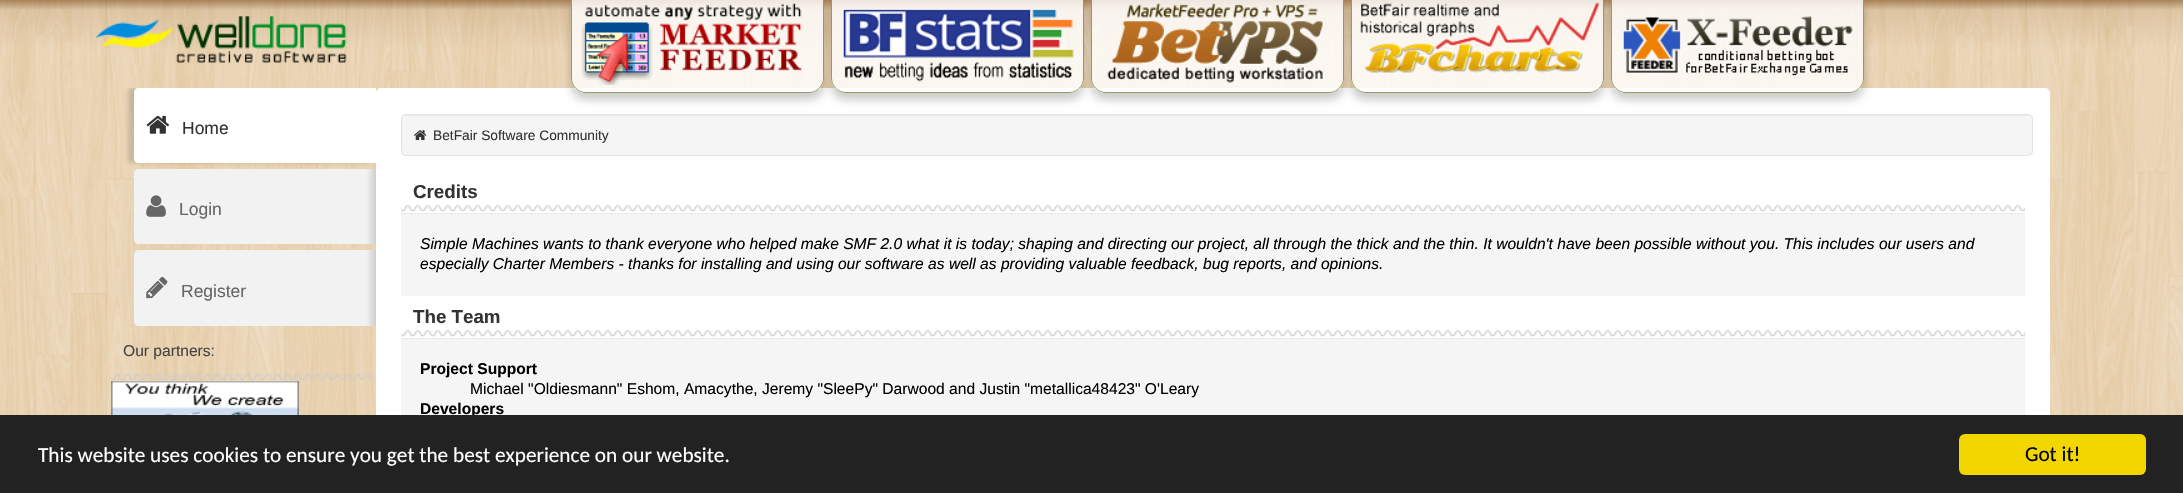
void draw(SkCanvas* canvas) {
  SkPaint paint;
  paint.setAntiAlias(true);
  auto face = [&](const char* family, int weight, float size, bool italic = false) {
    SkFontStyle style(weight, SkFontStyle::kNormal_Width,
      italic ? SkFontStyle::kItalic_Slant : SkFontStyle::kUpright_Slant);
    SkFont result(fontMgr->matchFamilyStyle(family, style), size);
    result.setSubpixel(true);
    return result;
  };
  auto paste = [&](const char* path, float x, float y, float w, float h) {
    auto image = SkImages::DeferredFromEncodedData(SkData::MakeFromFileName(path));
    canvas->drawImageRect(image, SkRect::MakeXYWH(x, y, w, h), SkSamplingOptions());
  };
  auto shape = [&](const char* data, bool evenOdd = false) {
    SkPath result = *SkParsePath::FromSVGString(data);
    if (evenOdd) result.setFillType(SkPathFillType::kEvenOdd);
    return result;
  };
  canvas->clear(0xffffffff);
  paste("img/1.png", 0, 0, 2183, 415);
  paste("img/2.png", 96, 16, 251, 47);
  paint.setColor(0xffffffff);
  canvas->drawRoundRect(SkRect::MakeXYWH(376, 88, 1674, 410), 5, 5, paint);
  canvas->save();
  canvas->clipPath(shape("M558 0H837V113H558ZM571-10H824V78C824 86.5 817.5 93 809 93H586C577.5 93 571 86.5 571 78Z", true), true);
  paint.setColor(0x33000000);
  paint.setMaskFilter(SkMaskFilter::MakeBlur(kNormal_SkBlurStyle, 4));
  canvas->drawRoundRect(SkRect::MakeXYWH(571, -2, 253, 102), 15, 15, paint);
  paint.setMaskFilter(nullptr);
  canvas->restore();
  paint.setColor(0xccffffff);
  canvas->drawPath(shape("M571-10H824V78C824 86.5 817.5 93 809 93H586C577.5 93 571 86.5 571 78Z"), paint);
  paste("img/3.png", 581, 3, 221, 82);
  paint.setStroke(true);
  paint.setStrokeWidth(1);
  paint.setColor(0xff999966);
  canvas->drawPath(shape("M571.5-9.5H823.5V78C823.5 86 817 92.5 809 92.5H586C578 92.5 571.5 86 571.5 78Z"), paint);
  canvas->save();
  canvas->clipPath(shape("M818 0H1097V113H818ZM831-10H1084V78C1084 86.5 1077.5 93 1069 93H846C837.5 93 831 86.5 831 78Z", true), true);
  paint.setStroke(false);
  paint.setColor(0x33000000);
  paint.setMaskFilter(SkMaskFilter::MakeBlur(kNormal_SkBlurStyle, 4));
  canvas->drawRoundRect(SkRect::MakeXYWH(831, -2, 253, 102), 15, 15, paint);
  paint.setMaskFilter(nullptr);
  canvas->restore();
  paint.setColor(0xccffffff);
  canvas->drawPath(shape("M831-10H1084V78C1084 86.5 1077.5 93 1069 93H846C837.5 93 831 86.5 831 78Z"), paint);
  paste("img/4.png", 843, 9, 231, 73);
  paint.setStroke(true);
  paint.setColor(0xff999966);
  canvas->drawPath(shape("M831.5-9.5H1083.5V78C1083.5 86 1077 92.5 1069 92.5H846C838 92.5 831.5 86 831.5 78Z"), paint);
  canvas->save();
  canvas->clipPath(shape("M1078 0H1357V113H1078ZM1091-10H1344V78C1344 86.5 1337.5 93 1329 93H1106C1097.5 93 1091 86.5 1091 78Z", true), true);
  paint.setStroke(false);
  paint.setColor(0x33000000);
  paint.setMaskFilter(SkMaskFilter::MakeBlur(kNormal_SkBlurStyle, 4));
  canvas->drawRoundRect(SkRect::MakeXYWH(1091, -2, 253, 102), 15, 15, paint);
  paint.setMaskFilter(nullptr);
  canvas->restore();
  paint.setColor(0xccffffff);
  canvas->drawPath(shape("M1091-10H1344V78C1344 86.5 1337.5 93 1329 93H1106C1097.5 93 1091 86.5 1091 78Z"), paint);
  paste("img/5.png", 1107, 3, 217, 80);
  paint.setStroke(true);
  paint.setColor(0xff999966);
  canvas->drawPath(shape("M1091.5-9.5H1343.5V78C1343.5 86 1337 92.5 1329 92.5H1106C1098 92.5 1091.5 86 1091.5 78Z"), paint);
  canvas->save();
  canvas->clipPath(shape("M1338 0H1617V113H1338ZM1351-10H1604V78C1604 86.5 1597.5 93 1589 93H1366C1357.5 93 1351 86.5 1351 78Z", true), true);
  paint.setStroke(false);
  paint.setColor(0x33000000);
  paint.setMaskFilter(SkMaskFilter::MakeBlur(kNormal_SkBlurStyle, 4));
  canvas->drawRoundRect(SkRect::MakeXYWH(1351, -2, 253, 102), 15, 15, paint);
  paint.setMaskFilter(nullptr);
  canvas->restore();
  paint.setColor(0xccffffff);
  canvas->drawPath(shape("M1351-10H1604V78C1604 86.5 1597.5 93 1589 93H1366C1357.5 93 1351 86.5 1351 78Z"), paint);
  paste("img/6.png", 1360, 2, 239, 71);
  paint.setStroke(true);
  paint.setColor(0xff999966);
  canvas->drawPath(shape("M1351.5-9.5H1603.5V78C1603.5 86 1597 92.5 1589 92.5H1366C1358 92.5 1351.5 86 1351.5 78Z"), paint);
  canvas->save();
  canvas->clipPath(shape("M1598 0H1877V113H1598ZM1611-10H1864V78C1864 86.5 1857.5 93 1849 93H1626C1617.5 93 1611 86.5 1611 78Z", true), true);
  paint.setStroke(false);
  paint.setColor(0x33000000);
  paint.setMaskFilter(SkMaskFilter::MakeBlur(kNormal_SkBlurStyle, 4));
  canvas->drawRoundRect(SkRect::MakeXYWH(1611, -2, 253, 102), 15, 15, paint);
  paint.setMaskFilter(nullptr);
  canvas->restore();
  paint.setColor(0xccffffff);
  canvas->drawPath(shape("M1611-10H1864V78C1864 86.5 1857.5 93 1849 93H1626C1617.5 93 1611 86.5 1611 78Z"), paint);
  paste("img/7.png", 1623, 16, 231, 60);
  paint.setStroke(true);
  paint.setColor(0xff999966);
  canvas->drawPath(shape("M1611.5-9.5H1863.5V78C1863.5 86 1857 92.5 1849 92.5H1626C1618 92.5 1611.5 86 1611.5 78Z"), paint);
  canvas->save();
  canvas->clipRect(SkRect::MakeXYWH(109, 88, 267, 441));
  paint.setStroke(false);
  paint.setColor(0x26000000);
  paint.setMaskFilter(SkMaskFilter::MakeBlur(kNormal_SkBlurStyle, 2));
  canvas->drawRoundRect(SkRect::MakeXYWH(128, 88, 242, 75), 4, 4, paint);
  paint.setMaskFilter(nullptr);
  canvas->restore();
  paint.setColor(0xffffffff);
  canvas->drawPath(shape("M138 88H376V163H138C136 163 134 161 134 159V92C134 90 136 88 138 88Z"), paint);
  paste("img/8.png", 146, 115, 23, 19);
  {
    const SkColor colors[] = {0xfff2f2f2, 0xfff2f2f2, 0xffcecece};
    const float stops[] = {0, 0.96f, 1};
    const SkPoint ends[] = {{134, 206}, {376, 206}};
    paint.setShader(SkGradientShader::MakeLinear(ends, colors, stops, 3, SkTileMode::kClamp));
    paint.setAlpha(255);
  }
  canvas->drawPath(shape("M138 169H376V244H138C136 244 134 242 134 240V173C134 171 136 169 138 169Z"), paint);
  paste("img/9.png", 146, 195, 20, 22);
  {
    const SkColor colors[] = {0xfff2f2f2, 0xfff2f2f2, 0xffcecece};
    const float stops[] = {0, 0.96f, 1};
    const SkPoint ends[] = {{134, 288}, {376, 288}};
    paint.setShader(SkGradientShader::MakeLinear(ends, colors, stops, 3, SkTileMode::kClamp));
    paint.setAlpha(255);
  }
  canvas->drawPath(shape("M138 250H376V326H138C136 326 134 324 134 322V254C134 252 136 250 138 250Z"), paint);
  paste("img/10.png", 146, 276, 22, 23);
  paste("img/11.png", 111, 373, 263, 7);
  paste("img/12.png", 111, 381, 188, 34);
  paint.setShader(nullptr);
  paint.setColor(0xfff5f5f5);
  canvas->drawRoundRect(SkRect::MakeXYWH(401, 114, 1632, 42), 5, 5, paint);
  paint.setColor(0xffe9e9e9);
  canvas->drawPath(shape("M406 116H2028C2030 116 2031 118 2031 120V119C2031 117 2029 115 2027 115H407C406 115 404 116 404 117Z"), paint);
  paint.setStroke(true);
  paint.setColor(0xffe3e3e3);
  canvas->drawRoundRect(SkRect::MakeXYWH(401.5f, 114.5f, 1631, 41), 4.5f, 4.5f, paint);
  paste("img/13.png", 414, 130, 13, 10);
  paste("img/14.png", 401, 205, 1624, 7);
  paint.setStroke(false);
  paint.setColor(0xfff5f5f5);
  canvas->drawRect(SkRect::MakeXYWH(401, 214, 1624, 82), paint);
  paint.setColor(0xffe9e9e9);
  canvas->drawRect(SkRect::MakeXYWH(401, 213, 1624, 1), paint);
  paste("img/14.png", 401, 330, 1624, 7);
  paint.setColor(0xfff5f5f5);
  canvas->drawRect(SkRect::MakeXYWH(401, 339, 1624, 76), paint);
  paint.setColor(0xffe9e9e9);
  canvas->drawRect(SkRect::MakeXYWH(401, 338, 1624, 1), paint);
  auto f0 = face("Liberation Sans", 400, 17.5f);
  paint.setColor(0xff333333);
  canvas->drawString("Home", 182, 134, f0, paint);
  paint.setColor(0xff666666);
  canvas->drawString("Login", 179, 215, f0, paint);
  canvas->drawString("Register", 181, 297, f0, paint);
  auto f1 = face("Liberation Sans", 400, 15.6f);
  paint.setColor(0xff444444);
  canvas->drawString("Our partners:", 123, 356, f1, paint);
  auto f2 = face("Liberation Sans", 400, 13.75f);
  paint.setColor(0xff333333);
  canvas->drawString("BetFair Software Community", 433, 140, f2, paint);
  auto f3 = face("Liberation Sans", 700, 18.75f);
  canvas->drawString("Credits", 413, 198, f3, paint);
  auto f4 = face("Liberation Sans", 400, 15.6f, true);
  paint.setColor(0xff000000);
  canvas->drawString("Simple Machines wants to thank everyone who helped make SMF 2.0 what it is today; shaping and directing our project, all through the thick and the thin. It wouldn't have been possible without you. This includes our users and", 420, 249, f4, paint);
  canvas->drawString("especially Charter Members - thanks for installing and using our software as well as providing valuable feedback, bug reports, and opinions.", 420, 269, f4, paint);
  paint.setColor(0xff333333);
  canvas->drawString("The Team", 413, 323, f3, paint);
  auto f5 = face("Liberation Sans", 700, 15.6f);
  paint.setColor(0xff000000);
  canvas->drawString("Project Support", 420, 374, f5, paint);
  canvas->drawString("Michael \"Oldiesmann\" Eshom, Amacythe, Jeremy \"SleePy\" Darwood and Justin \"metallica48423\" O'Leary", 470, 394, f1, paint);
  canvas->drawString("Developers", 420, 414, f5, paint);
  paint.setColor(0xff222222);
  canvas->drawRect(SkRect::MakeXYWH(0, 415, 2183, 78), paint);
  auto f6 = face("Carlito", 400, 21.25f);
  paint.setColor(0xffffffff);
  canvas->drawString("This website uses cookies to ensure you get the best experience on our website.", 38, 462, f6, paint);
  paint.setColor(0xfff1d600);
  canvas->drawRoundRect(SkRect::MakeXYWH(1959, 434, 187, 41), 6, 6, paint);
  paint.setColor(0xff000000);
  canvas->drawString("Got it!", 2025, 461, f6, paint);
}
